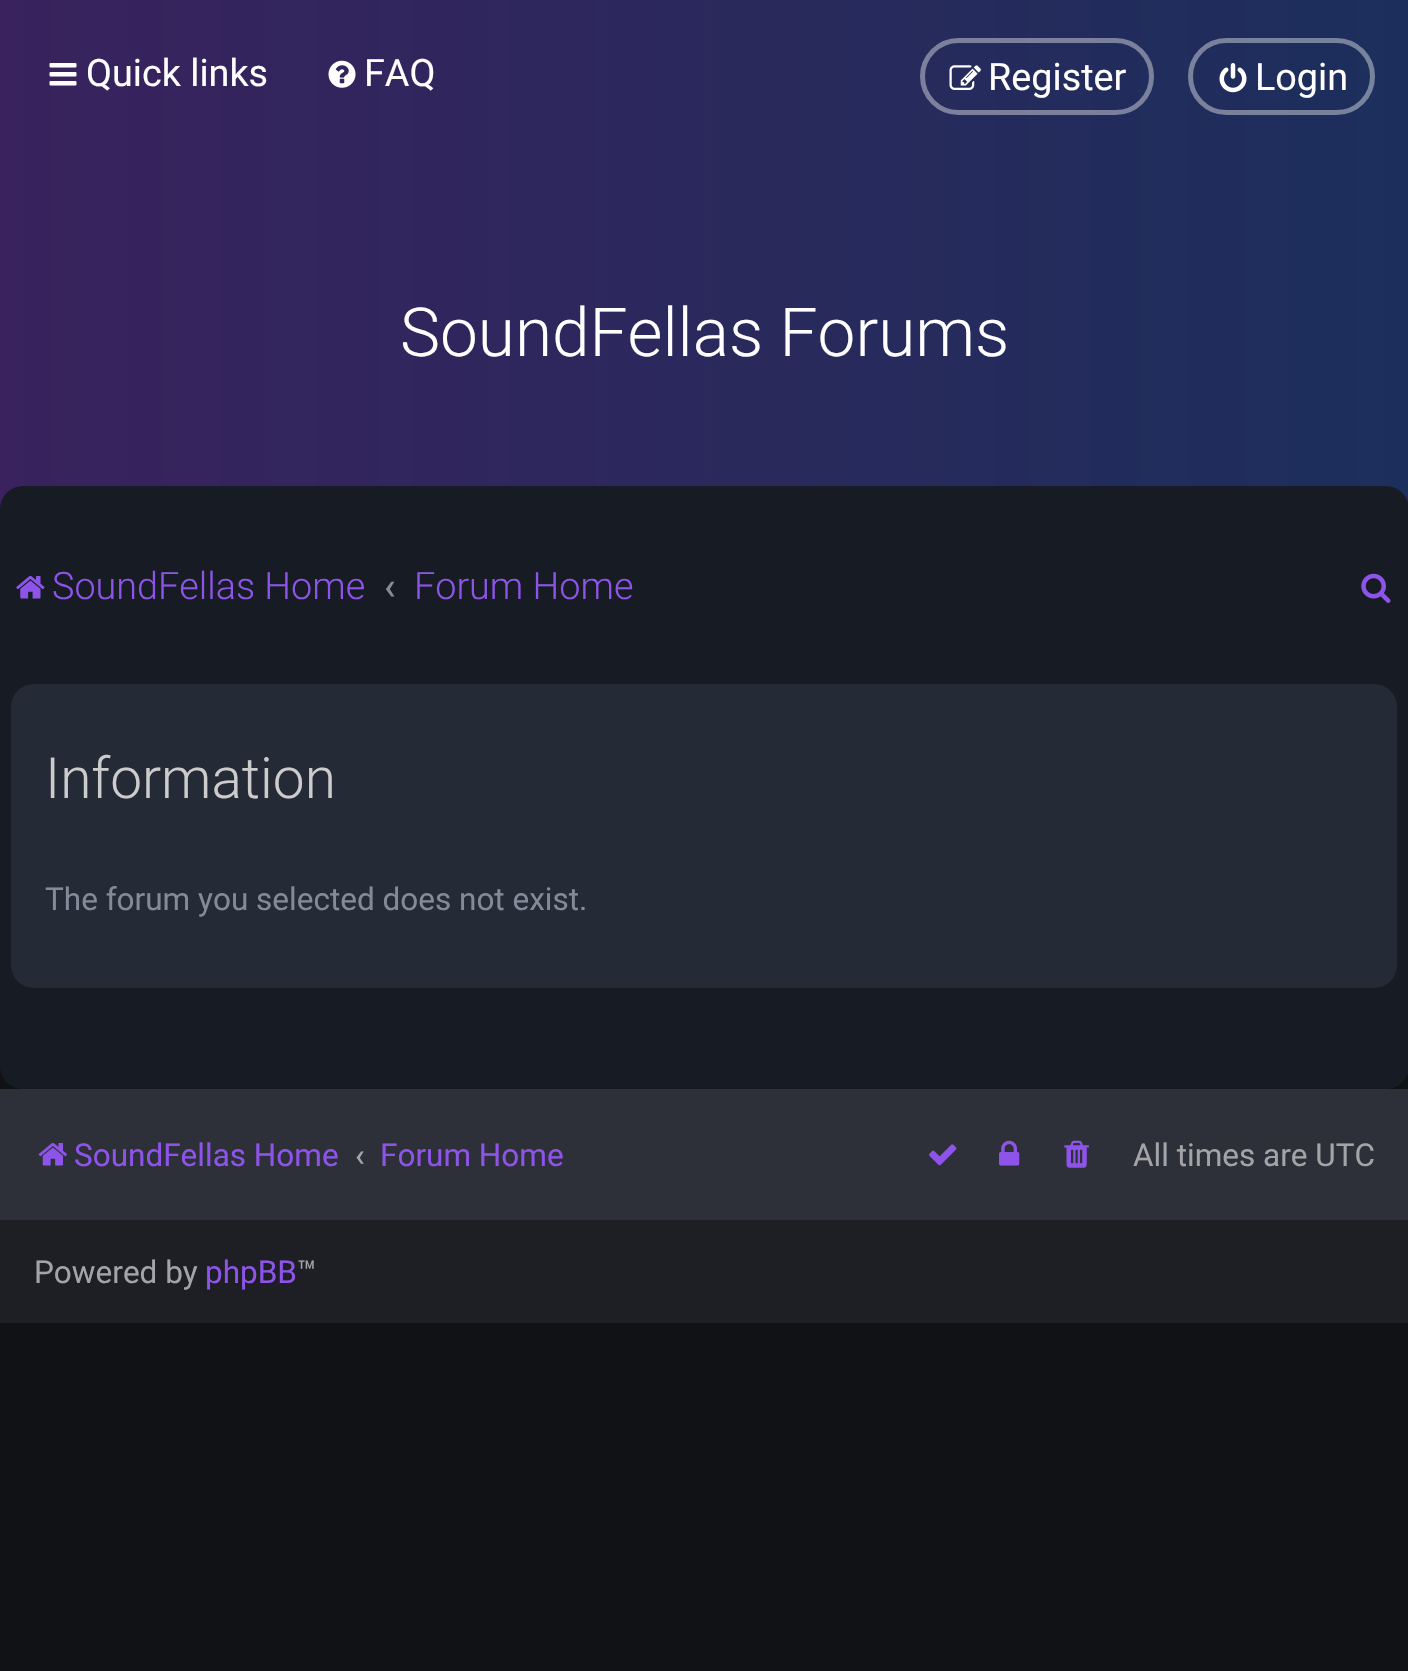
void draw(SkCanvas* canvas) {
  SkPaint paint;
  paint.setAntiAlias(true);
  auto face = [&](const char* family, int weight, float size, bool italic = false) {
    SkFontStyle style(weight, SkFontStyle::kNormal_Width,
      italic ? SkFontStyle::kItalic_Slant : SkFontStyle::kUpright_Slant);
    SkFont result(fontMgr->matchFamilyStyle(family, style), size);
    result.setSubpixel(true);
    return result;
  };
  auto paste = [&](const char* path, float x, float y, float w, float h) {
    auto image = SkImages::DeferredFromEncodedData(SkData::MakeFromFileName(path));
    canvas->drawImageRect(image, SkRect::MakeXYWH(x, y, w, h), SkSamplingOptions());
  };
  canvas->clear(0xff101216);
  {
    const SkColor colors[] = {0xff39225d, 0xff1c2f5c};
    const float stops[] = {0, 1};
    const SkPoint ends[] = {{0, 299}, {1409, 299}};
    paint.setShader(SkGradientShader::MakeLinear(ends, colors, stops, 2, SkTileMode::kClamp));
    paint.setAlpha(255);
  }
  canvas->drawRect(SkRect::MakeXYWH(0, 0, 1408, 509), paint);
  paste("img/1.png", 49, 63, 28, 23);
  paste("img/2.png", 328, 60, 28, 28);
  paint.setStroke(true);
  paint.setStrokeWidth(5);
  paint.setShader(nullptr);
  paint.setColor(0x66ffffff);
  canvas->drawRoundRect(SkRect::MakeXYWH(922.5f, 40.5f, 229, 72), 36, 36, paint);
  paste("img/3.png", 949, 65, 32, 25);
  canvas->drawRoundRect(SkRect::MakeXYWH(1190.5f, 40.5f, 182, 72), 36, 36, paint);
  paste("img/4.png", 1219, 63, 28, 30);
  paint.setStroke(false);
  paint.setColor(0xff171b24);
  canvas->drawRoundRect(SkRect::MakeXYWH(0, 486, 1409, 603), 23, 23, paint);
  paste("img/5.png", 16, 576, 29, 23);
  paste("img/6.png", 1361, 573, 30, 30);
  paint.setColor(0xff242a36);
  canvas->drawRoundRect(SkRect::MakeXYWH(11, 684, 1386, 304), 23, 23, paint);
  paint.setColor(0xff2d3039);
  canvas->drawRect(SkRect::MakeXYWH(0, 1089, 1408, 131), paint);
  paste("img/7.png", 38, 1143, 29, 23);
  paste("img/8.png", 929, 1144, 28, 22);
  paste("img/9.png", 999, 1140, 21, 26);
  paste("img/10.png", 1064, 1140, 25, 28);
  paint.setColor(0xff1d1f25);
  canvas->drawRect(SkRect::MakeXYWH(0, 1220, 1408, 103), paint);
  auto f0 = face("Roboto", 400, 37.75f);
  paint.setColor(0xffffffff);
  {
    const struct { const char* s; float x, y; } items[] = {
      {"Quick links", 86, 86},
      {"FAQ", 364, 86},
      {"Register", 988, 90},
      {"Login", 1255, 90},
    };
    for (auto [s, x, y] : items) {
      canvas->drawString(s, x, y, f0, paint);
    }
  }
  auto f1 = face("Roboto", 300, 67.5f);
  canvas->drawString("SoundFellas Forums", 400, 356, f1, paint);
  auto f2 = face("Roboto", 300, 37.75f);
  paint.setColor(0xff8e54e9);
  canvas->drawString("SoundFellas Home", 52, 599, f2, paint);
  auto f3 = face("Roboto", 500, 37.75f);
  paint.setColor(0xff838b98);
  canvas->drawString("‹", 384, 599, f3, paint);
  paint.setColor(0xff8e54e9);
  canvas->drawString("Forum Home", 414, 599, f2, paint);
  auto f4 = face("Roboto", 300, 56.75f);
  paint.setColor(0xffcccccc);
  canvas->drawString("Information", 45, 798, f4, paint);
  auto f5 = face("Roboto", 400, 31.5f);
  paint.setColor(0xff838b98);
  canvas->drawString("The forum you selected does not exist.", 45, 910, f5, paint);
  paint.setColor(0xff8e54e9);
  canvas->drawString("SoundFellas Home", 74, 1166, f5, paint);
  auto f6 = face("Roboto", 500, 31.5f);
  paint.setColor(0xffa4a4a7);
  canvas->drawString("‹", 355, 1166, f6, paint);
  paint.setColor(0xff8e54e9);
  canvas->drawString("Forum Home", 380, 1166, f5, paint);
  paint.setColor(0xffa4a4a7);
  canvas->drawString("All times are UTC", 1133, 1166, f5, paint);
  canvas->drawString("Powered by", 34, 1283, f5, paint);
  paint.setColor(0xff8e54e9);
  canvas->drawString("phpBB", 205, 1283, f5, paint);
  paint.setColor(0xffa4a4a7);
  canvas->drawString("™", 297, 1283, f5, paint);
}
